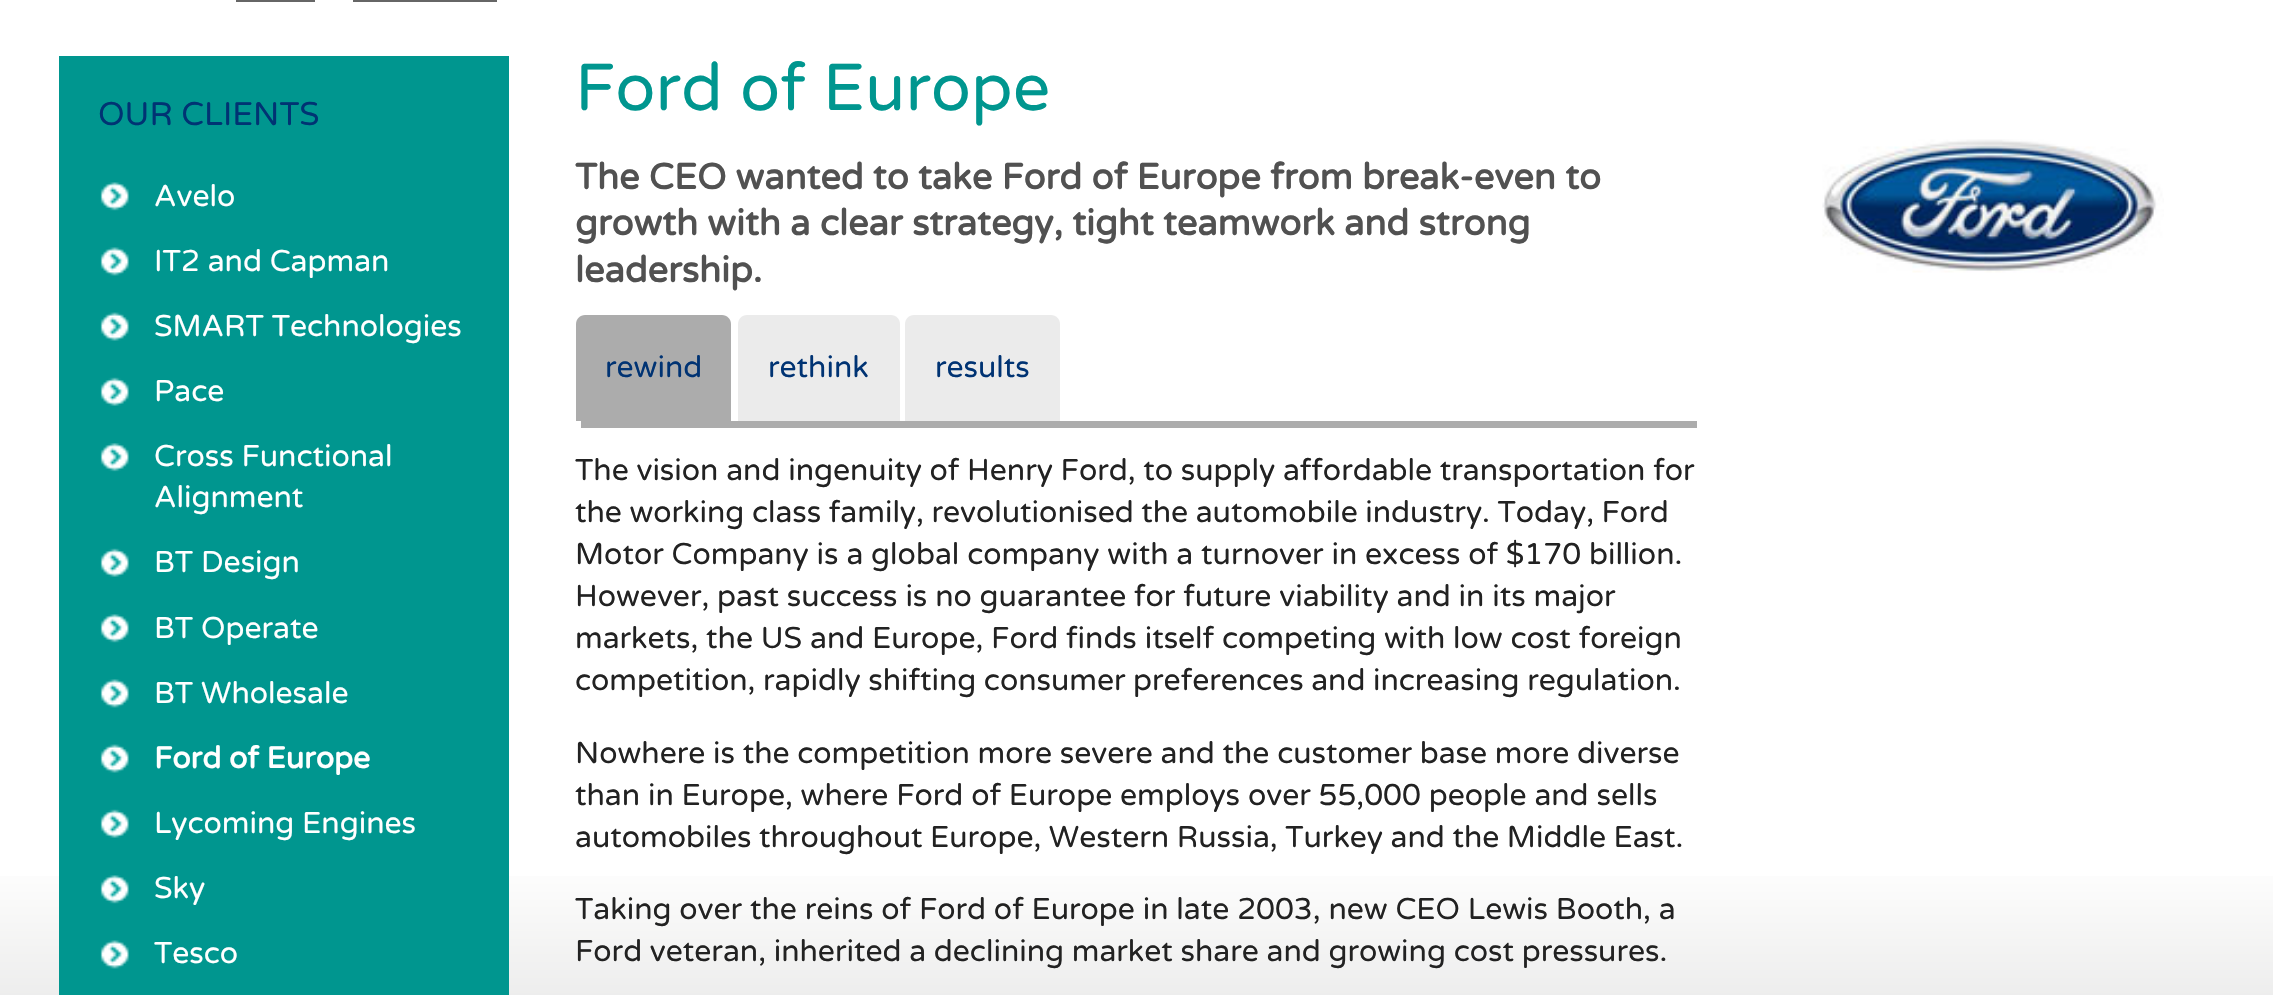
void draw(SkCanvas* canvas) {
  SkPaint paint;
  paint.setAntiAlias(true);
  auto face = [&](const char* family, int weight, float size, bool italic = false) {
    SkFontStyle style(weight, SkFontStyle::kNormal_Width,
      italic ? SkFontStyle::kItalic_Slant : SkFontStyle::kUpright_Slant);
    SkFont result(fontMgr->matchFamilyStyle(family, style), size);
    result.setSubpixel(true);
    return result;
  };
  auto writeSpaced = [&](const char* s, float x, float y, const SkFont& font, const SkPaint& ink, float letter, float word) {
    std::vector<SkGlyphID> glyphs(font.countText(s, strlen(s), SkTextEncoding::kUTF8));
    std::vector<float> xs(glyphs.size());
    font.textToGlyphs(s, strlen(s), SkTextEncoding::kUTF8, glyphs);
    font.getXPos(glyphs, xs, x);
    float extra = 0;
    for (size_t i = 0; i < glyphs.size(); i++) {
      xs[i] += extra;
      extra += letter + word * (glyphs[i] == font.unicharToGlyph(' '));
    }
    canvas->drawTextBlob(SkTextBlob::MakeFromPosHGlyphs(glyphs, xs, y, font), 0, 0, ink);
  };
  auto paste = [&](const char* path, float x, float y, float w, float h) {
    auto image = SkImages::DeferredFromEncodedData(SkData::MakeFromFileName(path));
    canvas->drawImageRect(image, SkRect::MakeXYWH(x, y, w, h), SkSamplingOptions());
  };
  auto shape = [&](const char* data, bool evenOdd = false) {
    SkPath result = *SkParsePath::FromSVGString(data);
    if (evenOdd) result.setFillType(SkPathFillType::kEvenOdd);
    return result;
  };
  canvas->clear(0xffffffff);
  {
    const SkColor colors[] = {0xffffffff, 0xffcdcdcc};
    const float stops[] = {0.7f, 1};
    const SkPoint ends[] = {{1137, -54}, {1137, 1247}};
    paint.setShader(SkGradientShader::MakeLinear(ends, colors, stops, 2, SkTileMode::kClamp));
    paint.setAlpha(255);
  }
  canvas->drawRect(SkRect::MakeXYWH(0, 876, 2273, 119), paint);
  paint.setShader(nullptr);
  {
    const struct { float x, y, w, h; SkColor color; } items[] = {
      {236, 0, 79, 2, 0xff666666},
      {353, 0, 144, 2, 0xff666666},
      {59, 56, 450, 939, 0xff00968f},
    };
    for (auto [x, y, w, h, color] : items) {
      paint.setColor(color);
      canvas->drawRect(SkRect::MakeXYWH(x, y, w, h), paint);
    }
  }
  paste("img/1.png", 100, 182, 29, 29);
  paste("img/2.png", 100, 247, 29, 29);
  paste("img/3.png", 100, 312, 29, 29);
  paste("img/4.png", 100, 377, 29, 29);
  paste("img/5.png", 100, 443, 29, 29);
  paste("img/4.png", 100, 548, 29, 29);
  paste("img/1.png", 100, 614, 29, 29);
  paste("img/2.png", 100, 679, 29, 29);
  paste("img/6.png", 100, 744, 29, 29);
  paste("img/4.png", 100, 809, 29, 29);
  paste("img/1.png", 100, 875, 29, 29);
  paste("img/2.png", 100, 940, 29, 29);
  paint.setColor(0xffacacac);
  canvas->drawRect(SkRect::MakeXYWH(581, 421, 1116, 7), paint);
  canvas->drawPath(shape("M585 315H722C727 315 731 319 731 324V421H576V324C576 319 580 315 585 315Z"), paint);
  paint.setColor(0xffebebeb);
  canvas->drawPath(shape("M747 315H891C896 315 900 319 900 324V421H738V324C738 319 742 315 747 315Z"), paint);
  canvas->drawPath(shape("M914 315H1051C1056 315 1060 319 1060 324V421H905V324C905 319 909 315 914 315Z"), paint);
  paste("img/7.png", 1822, 139, 342, 134);
  auto f0 = face("Varela Round", 400, 32.75f);
  paint.setColor(0xff003373);
  canvas->drawString("OUR CLIENTS", 98, 125, f0, paint);
  auto f1 = face("Varela Round", 400, 30.1f);
  paint.setColor(0xffffffff);
  {
    const struct { const char* s; float x, y; } items[] = {
      {"Avelo", 154, 206},
      {"IT2 and Capman", 154, 271},
      {"SMART Technologies", 154, 336},
      {"Pace", 154, 401},
      {"Cross Functional", 154, 466},
      {"Alignment", 154, 507},
      {"BT Design", 154, 572},
      {"BT Operate", 154, 638},
      {"BT Wholesale", 154, 703},
    };
    for (auto [s, x, y] : items) {
      canvas->drawString(s, x, y, f1, paint);
    }
  }
  auto f2 = face("Varela Round", 700, 30.1f);
  canvas->drawString("Ford of Europe", 154, 768, f2, paint);
  {
    const struct { const char* s; float x, y; } items[] = {
      {"Lycoming Engines", 154, 833},
      {"Sky", 154, 898},
      {"Tesco", 154, 963},
    };
    for (auto [s, x, y] : items) {
      canvas->drawString(s, x, y, f1, paint);
    }
  }
  auto f3 = face("Varela Round", 400, 66.25f);
  paint.setColor(0xff00968f);
  canvas->drawString("Ford of Europe", 575, 110, f3, paint);
  auto f4 = face("Varela Round", 700, 36.1f);
  paint.setColor(0xff515151);
  {
    const struct { const char* s; float x, y; } items[] = {
      {"The CEO wanted to take Ford of Europe from break-even to", 575, 189},
      {"growth with a clear strategy, tight teamwork and strong", 575, 235},
      {"leadership.", 575, 282},
    };
    for (auto [s, x, y] : items) {
      canvas->drawString(s, x, y, f4, paint);
    }
  }
  paint.setColor(0xff003373);
  {
    const struct { const char* s; float x, y; } items[] = {
      {"rewind", 605, 377},
      {"rethink", 768, 377},
      {"results", 935, 377},
    };
    for (auto [s, x, y] : items) {
      canvas->drawString(s, x, y, f1, paint);
    }
  }
  paint.setColor(0xff222222);
  writeSpaced("The vision and ingenuity of Henry Ford, to supply affordable transportation for", 575, 480, f1, paint, 0, -0.1f);
  writeSpaced("the working class family, revolutionised the automobile industry. Today, Ford", 575, 522, f1, paint, 0, -0.25f);
  {
    const struct { const char* s; float x, y; } items[] = {
      {"Motor Company is a global company with a turnover in excess of $170 billion.", 575, 564},
      {"However, past success is no guarantee for future viability and in its major", 575, 606},
      {"markets, the US and Europe, Ford finds itself competing with low cost foreign", 575, 648},
    };
    for (auto [s, x, y] : items) {
      canvas->drawString(s, x, y, f1, paint);
    }
  }
  writeSpaced("competition, rapidly shifting consumer preferences and increasing regulation.", 575, 690, f1, paint, 0, -0.25f);
  writeSpaced("Nowhere is the competition more severe and the customer base more diverse", 575, 763, f1, paint, 0, -0.1f);
  canvas->drawString("than in Europe, where Ford of Europe employs over 55,000 people and sells", 575, 805, f1, paint);
  writeSpaced("automobiles throughout Europe, Western Russia, Turkey and the Middle East.", 575, 847, f1, paint, 0, -0.25f);
  canvas->drawString("Taking over the reins of Ford of Europe in late 2003, new CEO Lewis Booth, a", 575, 919, f1, paint);
  writeSpaced("Ford veteran, inherited a declining market share and growing cost pressures.", 575, 961, f1, paint, 0, -0.1f);
}
